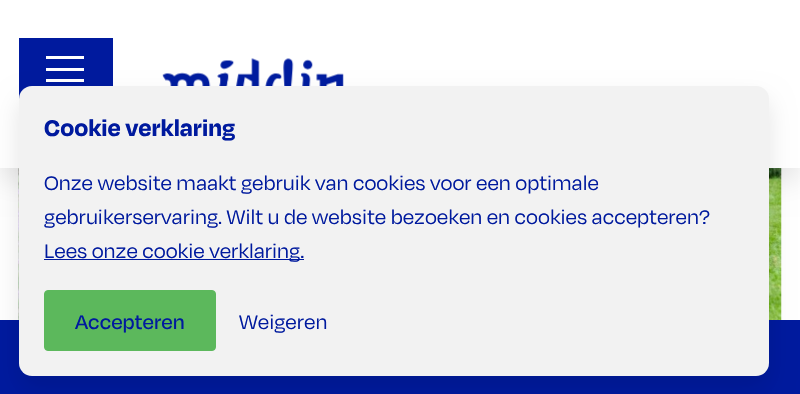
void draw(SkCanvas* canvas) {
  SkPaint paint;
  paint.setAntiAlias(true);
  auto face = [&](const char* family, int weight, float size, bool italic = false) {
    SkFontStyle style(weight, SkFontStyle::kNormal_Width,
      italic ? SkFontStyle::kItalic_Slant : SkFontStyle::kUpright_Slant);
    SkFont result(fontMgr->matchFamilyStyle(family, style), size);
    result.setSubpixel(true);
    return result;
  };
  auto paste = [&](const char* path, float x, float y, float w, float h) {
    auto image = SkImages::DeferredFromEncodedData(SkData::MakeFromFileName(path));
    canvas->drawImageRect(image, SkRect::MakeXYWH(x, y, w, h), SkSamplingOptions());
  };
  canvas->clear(0xffffffff);
  paste("img/2.png", 18, 168, 764, 152);
  paint.setColor(0x1a000000);
  paint.setMaskFilter(SkMaskFilter::MakeBlur(kNormal_SkBlurStyle, 12.5f));
  canvas->drawRect(SkRect::MakeXYWH(0, 13, 800, 167), paint);
  paint.setMaskFilter(nullptr);
  {
    const struct { float x, y, w, h; SkColor color; } items[] = {
      {0, 0, 800, 168, 0xffffffff},
      {19, 38, 94, 61, 0xff001a9e},
      {46, 56, 38, 3, 0xffffffff},
      {46, 68, 38, 3, 0xffffffff},
      {46, 79, 38, 3, 0xffffffff},
    };
    for (auto [x, y, w, h, color] : items) {
      paint.setColor(color);
      canvas->drawRect(SkRect::MakeXYWH(x, y, w, h), paint);
    }
  }
  paste("img/1.png", 162, 58, 182, 28);
  paint.setColor(0xff001a9e);
  canvas->drawRect(SkRect::MakeXYWH(0, 320, 800, 74), paint);
  paint.setColor(0x1a000000);
  paint.setMaskFilter(SkMaskFilter::MakeBlur(kNormal_SkBlurStyle, 12.5f));
  canvas->drawRoundRect(SkRect::MakeXYWH(19, 99, 750, 290), 13, 13, paint);
  paint.setMaskFilter(nullptr);
  paint.setColor(0xfff2f2f2);
  canvas->drawRoundRect(SkRect::MakeXYWH(19, 86, 750, 290), 13, 13, paint);
  paint.setColor(0xff001a9e);
  canvas->drawRect(SkRect::MakeXYWH(44, 259, 260, 1), paint);
  paint.setColor(0xff5cb85c);
  canvas->drawRoundRect(SkRect::MakeXYWH(44.5f, 290.5f, 171, 60), 3.5f, 3.5f, paint);
  paint.setStroke(true);
  paint.setStrokeWidth(1);
  canvas->drawRoundRect(SkRect::MakeXYWH(44.5f, 290.5f, 171, 60), 3.5f, 3.5f, paint);
  auto f0 = face("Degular", 700, 26);
  paint.setStroke(false);
  paint.setColor(0xff001a9e);
  canvas->drawString("Cookie verklaring", 44, 136, f0, paint);
  auto f1 = face("Degular", 400, 22.5f);
  {
    const struct { const char* s; float x, y; } items[] = {
      {"Onze website maakt gebruik van cookies voor een optimale", 44, 190},
      {"gebruikerservaring. Wilt u de website bezoeken en cookies accepteren?", 44, 224},
      {"Lees onze cookie verklaring.", 44, 258},
    };
    for (auto [s, x, y] : items) {
      canvas->drawString(s, x, y, f1, paint);
    }
  }
  auto f2 = face("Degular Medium", 500, 22.5f);
  canvas->drawString("Accepteren", 75, 329, f2, paint);
  canvas->drawString("Weigeren", 239, 329, f1, paint);
}
